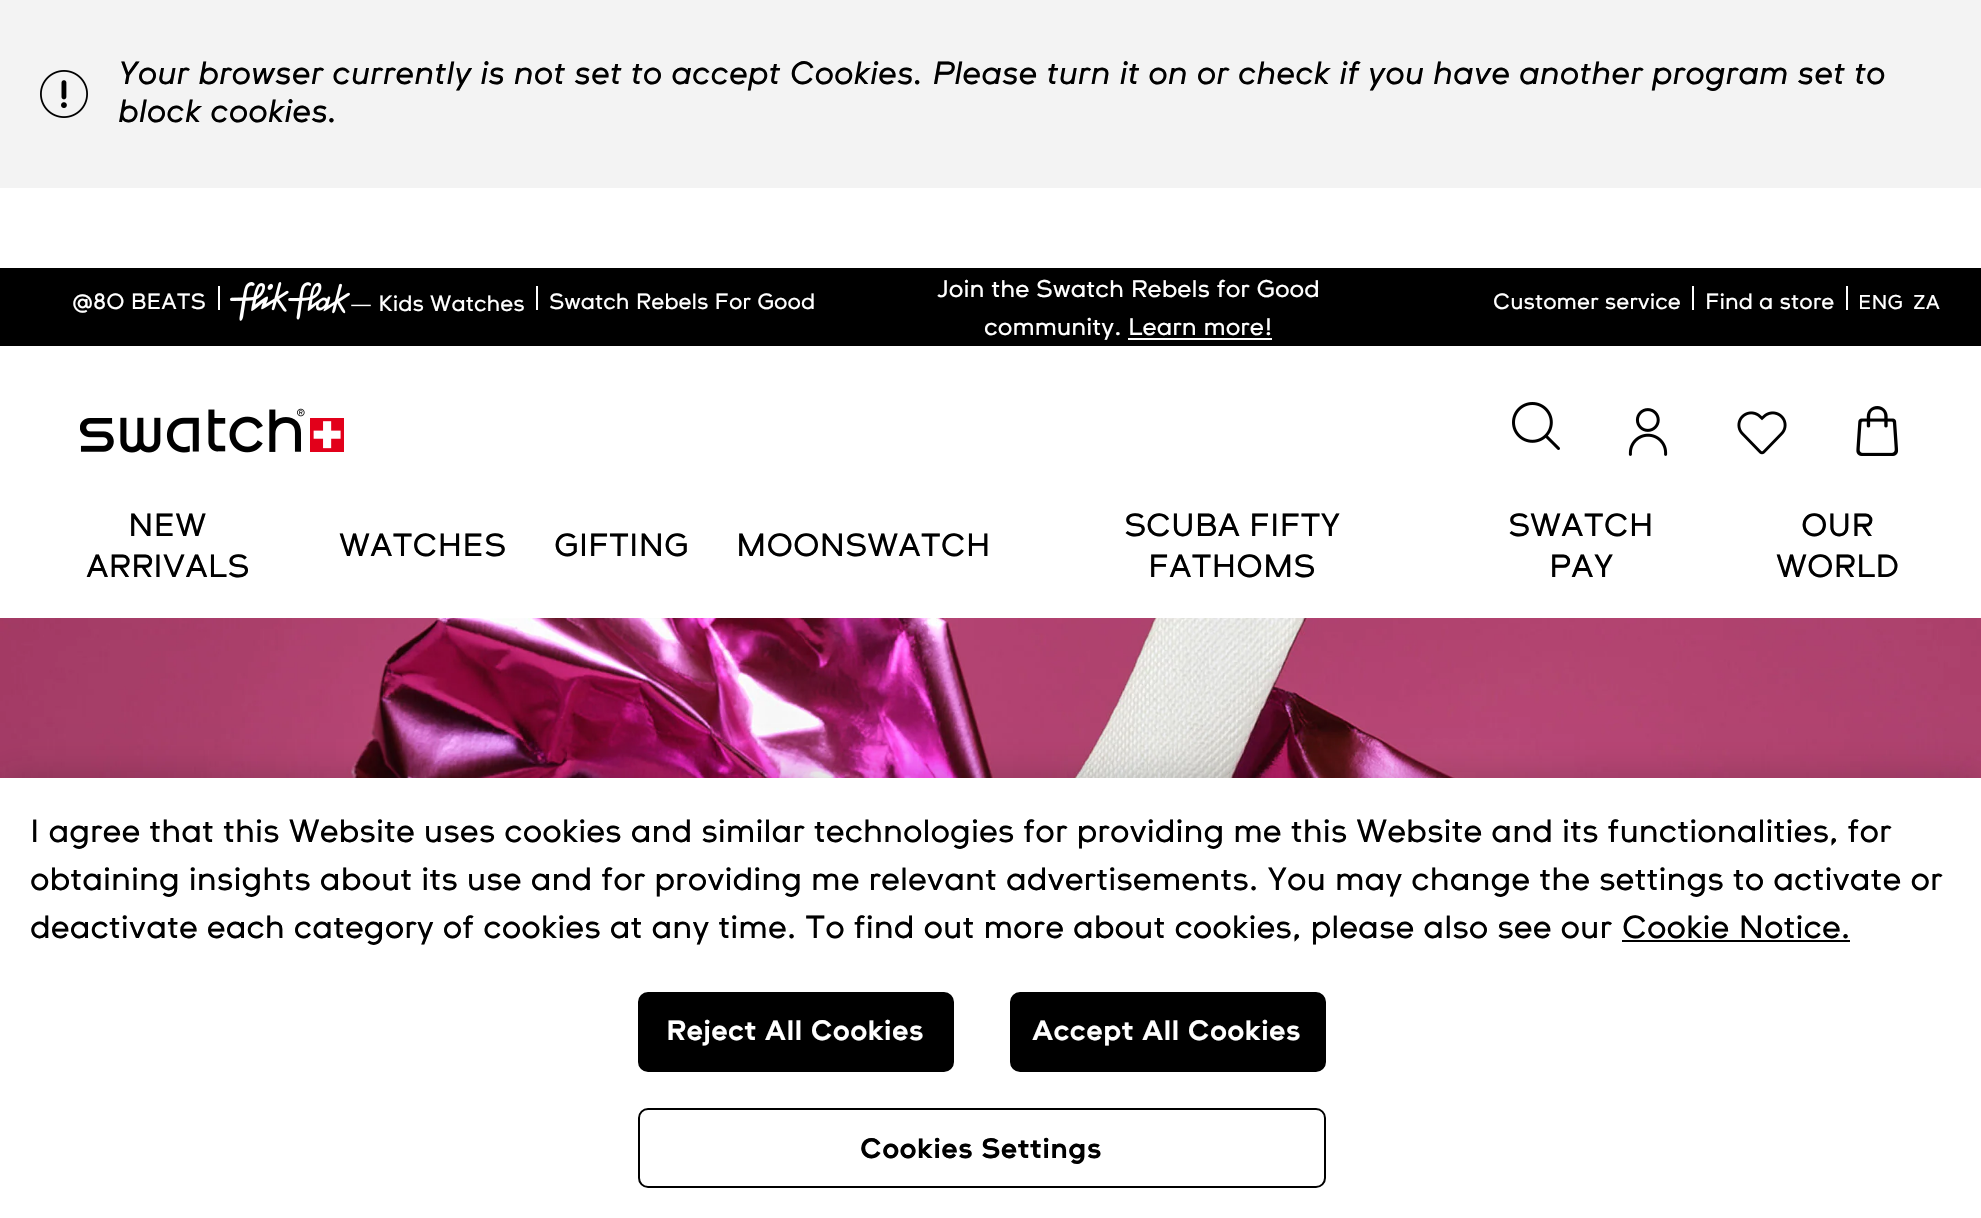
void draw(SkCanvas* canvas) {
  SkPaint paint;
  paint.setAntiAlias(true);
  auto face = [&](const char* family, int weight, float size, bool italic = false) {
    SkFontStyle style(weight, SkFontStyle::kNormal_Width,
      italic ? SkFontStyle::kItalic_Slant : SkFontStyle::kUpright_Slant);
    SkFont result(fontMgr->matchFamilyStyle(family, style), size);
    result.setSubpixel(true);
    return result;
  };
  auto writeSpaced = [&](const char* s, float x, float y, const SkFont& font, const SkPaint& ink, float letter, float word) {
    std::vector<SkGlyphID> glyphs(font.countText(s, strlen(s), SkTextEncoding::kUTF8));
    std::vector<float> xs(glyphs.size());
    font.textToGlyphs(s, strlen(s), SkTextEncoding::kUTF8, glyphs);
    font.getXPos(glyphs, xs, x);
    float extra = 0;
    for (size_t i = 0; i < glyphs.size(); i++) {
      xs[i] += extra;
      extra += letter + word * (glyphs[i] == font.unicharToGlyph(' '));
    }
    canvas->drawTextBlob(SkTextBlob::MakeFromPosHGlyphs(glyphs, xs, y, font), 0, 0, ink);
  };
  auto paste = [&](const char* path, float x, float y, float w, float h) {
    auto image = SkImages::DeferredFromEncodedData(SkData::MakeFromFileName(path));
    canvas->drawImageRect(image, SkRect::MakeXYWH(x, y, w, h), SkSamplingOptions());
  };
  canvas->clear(0xffffffff);
  paint.setColor(0xfff3f3f3);
  canvas->drawRect(SkRect::MakeXYWH(0, 0, 1981, 188), paint);
  paste("img/1.png", 40, 70, 48, 48);
  paint.setColor(0xff000000);
  canvas->drawRect(SkRect::MakeXYWH(0, 268, 1981, 78), paint);
  paint.setColor(0xffffffff);
  canvas->drawRect(SkRect::MakeXYWH(218, 286, 2, 24), paint);
  paste("img/2.png", 230, 282, 120, 39);
  {
    const struct { float x, y, w, h; SkColor color; } items[] = {
      {536, 286, 2, 24, 0xffffffff},
      {1128, 338, 144, 2, 0xffffffff},
      {1692, 286, 2, 24, 0xffffffff},
      {1846, 286, 2, 24, 0xffffffff},
    };
    for (auto [x, y, w, h, color] : items) {
      paint.setColor(color);
      canvas->drawRect(SkRect::MakeXYWH(x, y, w, h), paint);
    }
  }
  paste("img/3.png", 80, 408, 264, 45);
  paste("img/4.png", 1512, 402, 48, 48);
  paste("img/5.png", 1628, 408, 40, 48);
  paste("img/6.png", 1737, 411, 50, 44);
  paste("img/7.png", 1856, 406, 43, 50);
  paste("img/8.png", 0, 618, 1981, 160);
  paint.setColor(0x33000000);
  paint.setMaskFilter(SkMaskFilter::MakeBlur(kNormal_SkBlurStyle, 18));
  canvas->drawRect(SkRect::MakeXYWH(0, 778, 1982, 440), paint);
  paint.setMaskFilter(nullptr);
  paint.setColor(0xffffffff);
  canvas->drawRect(SkRect::MakeXYWH(0, 778, 1981, 440), paint);
  paint.setColor(0xff000000);
  canvas->drawRect(SkRect::MakeXYWH(1622, 940, 228, 2), paint);
  canvas->drawRoundRect(SkRect::MakeXYWH(639, 993, 314, 78), 9, 9, paint);
  paint.setStroke(true);
  paint.setStrokeWidth(2);
  canvas->drawRoundRect(SkRect::MakeXYWH(639, 993, 314, 78), 9, 9, paint);
  paint.setStroke(false);
  canvas->drawRoundRect(SkRect::MakeXYWH(1011, 993, 314, 78), 9, 9, paint);
  paint.setStroke(true);
  canvas->drawRoundRect(SkRect::MakeXYWH(1011, 993, 314, 78), 9, 9, paint);
  canvas->drawRoundRect(SkRect::MakeXYWH(639, 1109, 686, 78), 9, 9, paint);
  auto f0 = face("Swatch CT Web", 400, 32, true);
  paint.setStroke(false);
  canvas->drawString("Your browser currently is not set to accept Cookies. Please turn it on or check if you have another program set to", 118, 84, f0, paint);
  canvas->drawString("block cookies.", 118, 122, f0, paint);
  auto f1 = face("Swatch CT", 400, 22);
  paint.setColor(0xffffffff);
  {
    const struct { const char* s; float x, y; } items[] = {
      {"@80 BEATS", 72, 309},
      {"— Kids Watches", 350, 311},
      {"Swatch Rebels For Good", 549, 309},
    };
    for (auto [s, x, y] : items) {
      canvas->drawString(s, x, y, f1, paint);
    }
  }
  auto f2 = face("Swatch CT", 400, 24);
  canvas->drawString("Join the Swatch Rebels for Good", 937, 297, f2, paint);
  canvas->drawString("community. Learn more!", 984, 335, f2, paint);
  canvas->drawString("Customer service", 1493, 309, f1, paint);
  canvas->drawString("Find a store", 1705, 309, f1, paint);
  auto f3 = face("Swatch CT", 400, 20);
  canvas->drawString("ENG", 1858, 309, f3, paint);
  canvas->drawString("ZA", 1913, 309, f3, paint);
  auto f4 = face("Swatch CT", 400, 32);
  paint.setColor(0xff000000);
  {
    const struct { const char* s; float x, y; } items[] = {
      {"NEW", 128, 536},
      {"ARRIVALS", 86, 577},
      {"WATCHES", 339, 556},
      {"GIFTING", 554, 556},
      {"MOONSWATCH", 736, 556},
      {"SCUBA FIFTY", 1124, 536},
      {"FATHOMS", 1148, 577},
      {"SWATCH", 1508, 536},
      {"PAY", 1549, 577},
      {"OUR", 1801, 536},
      {"WORLD", 1776, 577},
      {"I agree that this Website uses cookies and similar technologies for providing me this Website and its functionalities, for", 30, 842},
      {"obtaining insights about its use and for providing me relevant advertisements. You may change the settings to activate or", 30, 890},
      {"deactivate each category of cookies at any time. To find out more about cookies, please also see our", 30, 938},
      {"Cookie Notice.", 1622, 938},
    };
    for (auto [s, x, y] : items) {
      canvas->drawString(s, x, y, f4, paint);
    }
  }
  auto f5 = face("Swatch CT", 700, 28);
  paint.setColor(0xffffffff);
  writeSpaced("Reject All Cookies", 666, 1040, f5, paint, 0.25f, 0);
  writeSpaced("Accept All Cookies", 1032, 1040, f5, paint, 0.25f, 0);
  paint.setColor(0xff000000);
  writeSpaced("Cookies Settings", 860, 1158, f5, paint, 0.25f, 0);
}
